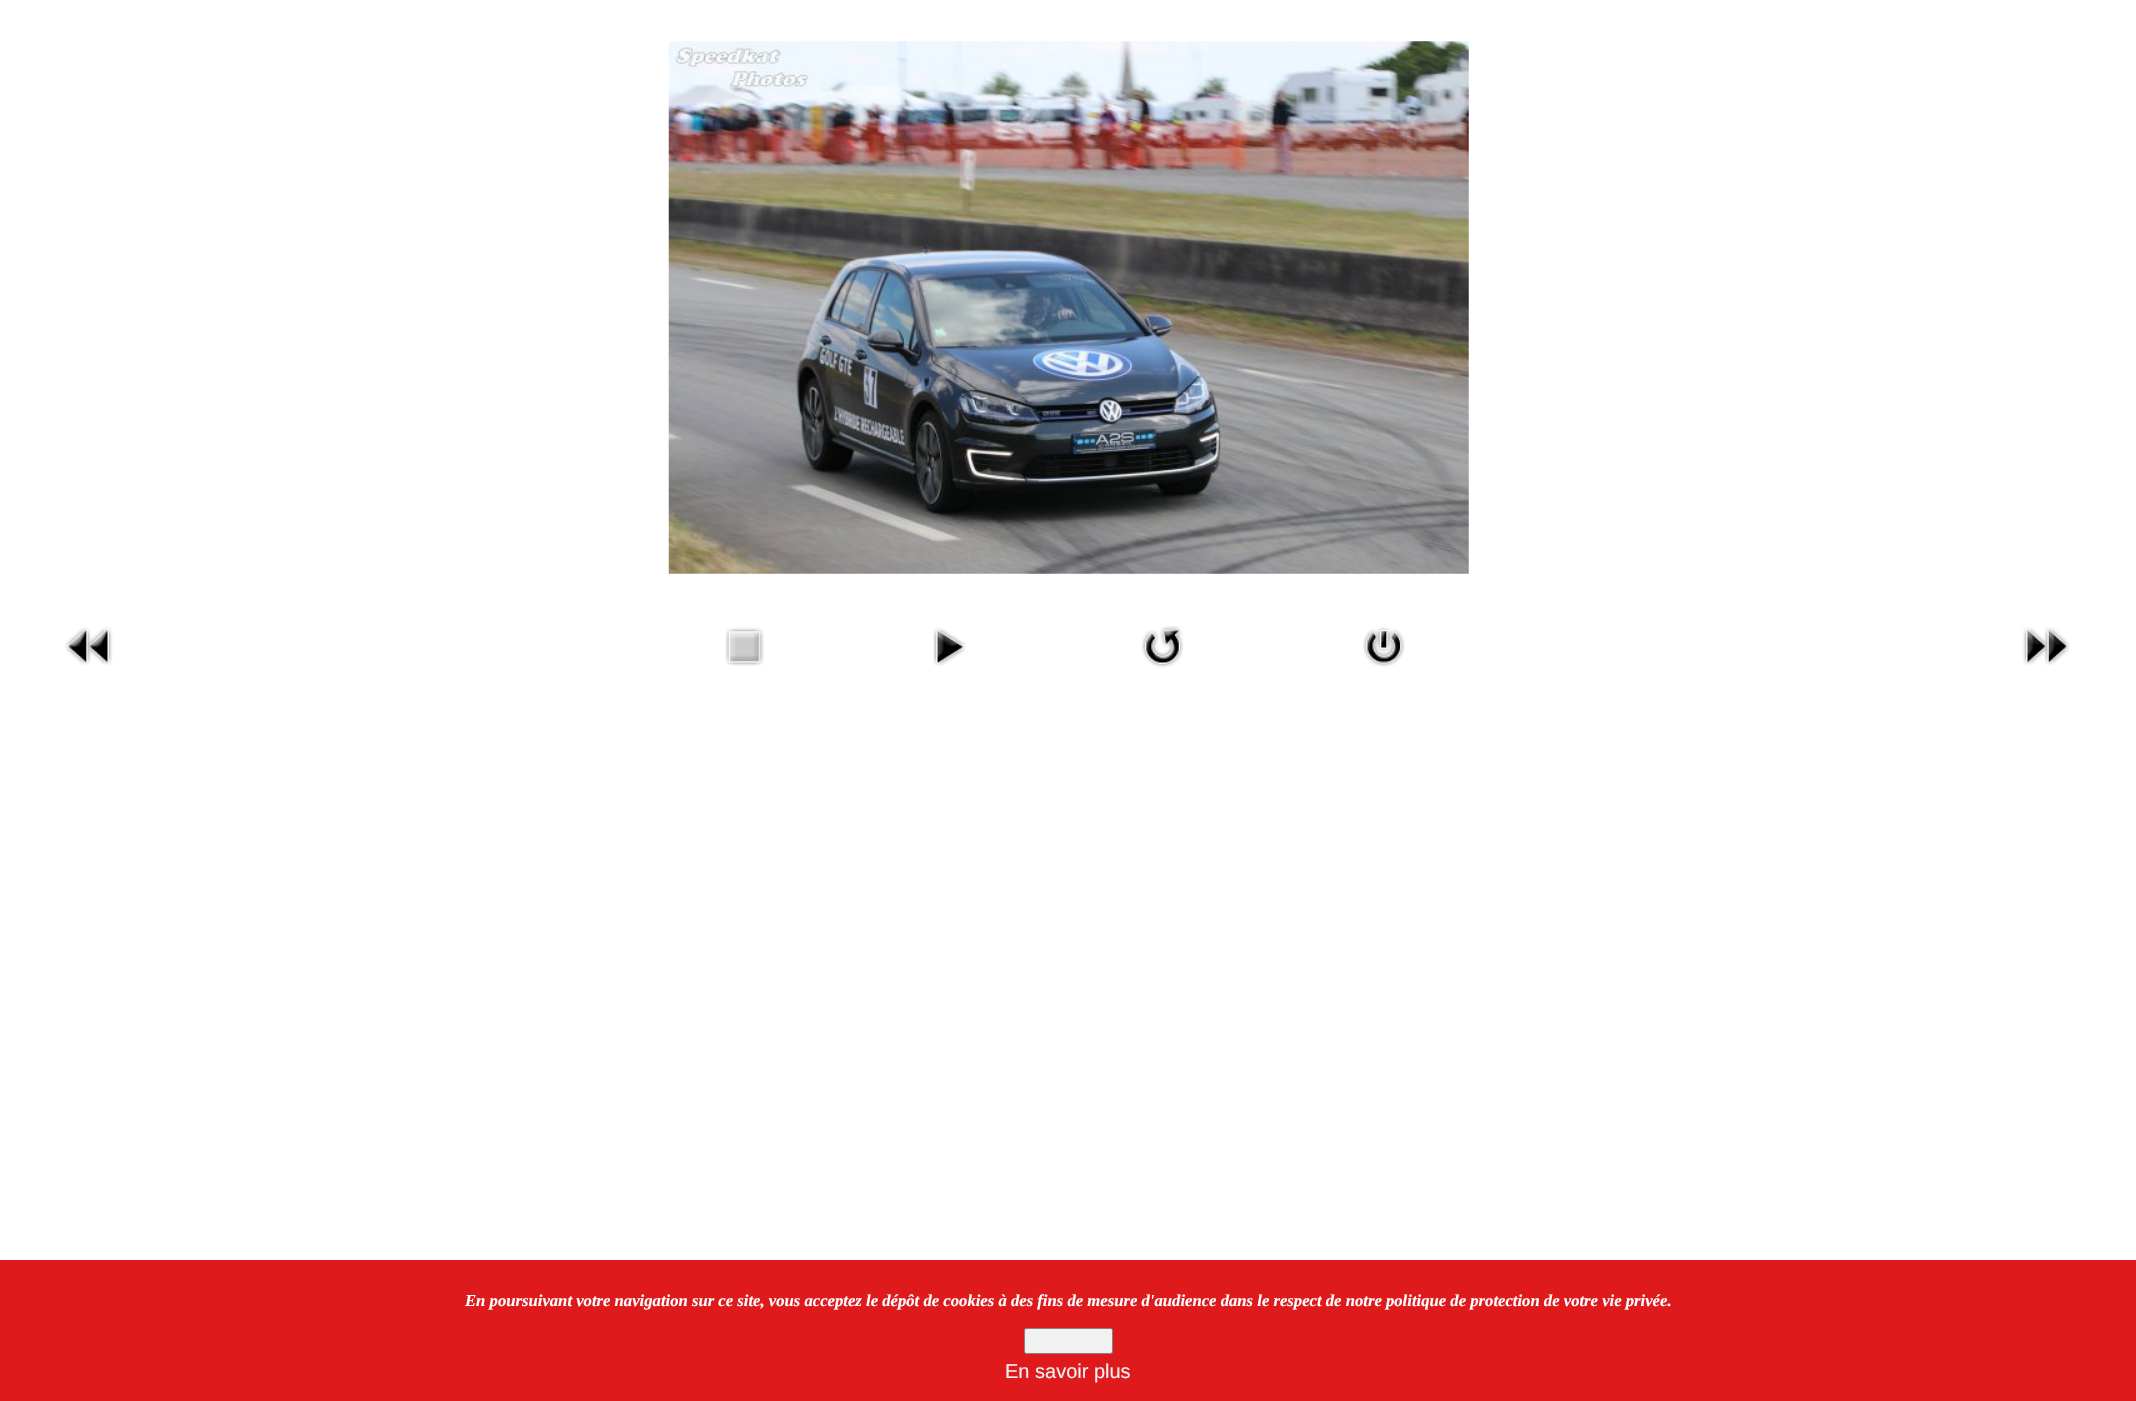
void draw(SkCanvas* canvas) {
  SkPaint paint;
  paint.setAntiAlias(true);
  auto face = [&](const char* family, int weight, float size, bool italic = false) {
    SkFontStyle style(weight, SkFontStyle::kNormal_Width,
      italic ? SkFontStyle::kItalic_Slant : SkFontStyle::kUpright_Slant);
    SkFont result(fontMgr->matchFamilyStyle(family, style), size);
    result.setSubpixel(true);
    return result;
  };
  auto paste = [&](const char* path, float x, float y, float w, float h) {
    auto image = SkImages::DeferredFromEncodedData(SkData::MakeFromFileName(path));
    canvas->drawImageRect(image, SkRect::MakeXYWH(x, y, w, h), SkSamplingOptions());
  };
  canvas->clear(0xffffffff);
  paste("img/1.png", 668, 41, 801, 533);
  paste("img/2.png", 65, 627, 48, 39);
  paste("img/3.png", 725, 627, 39, 39);
  paste("img/4.png", 933, 627, 33, 39);
  paste("img/5.png", 1141, 626, 43, 42);
  paste("img/6.png", 1363, 627, 42, 40);
  paste("img/7.png", 2022, 627, 48, 39);
  paint.setColor(0xffdf1a1d);
  canvas->drawRect(SkRect::MakeXYWH(0, 1260, 2136, 141), paint);
  paint.setColor(0xfff1f1f1);
  canvas->drawRoundRect(SkRect::MakeXYWH(1024.5f, 1328.5f, 88, 25), 2, 2, paint);
  paint.setStroke(true);
  paint.setStrokeWidth(1);
  paint.setColor(0xff848484);
  canvas->drawRoundRect(SkRect::MakeXYWH(1024.5f, 1328.5f, 88, 25), 2, 2, paint);
  auto f0 = face("Liberation Serif", 700, 16.67f, true);
  paint.setStroke(false);
  paint.setColor(0xffffffff);
  canvas->drawString("En poursuivant votre navigation sur ce site, vous acceptez le dépôt de cookies à des fins de mesure d'audience dans le respect de notre politique de protection de votre vie privée.", 465, 1306, f0, paint);
  auto f1 = face("Liberation Sans", 400, 20);
  paint.setColor(0xfff0f0f0);
  canvas->drawString("En savoir plus", 1005, 1378, f1, paint);
}
